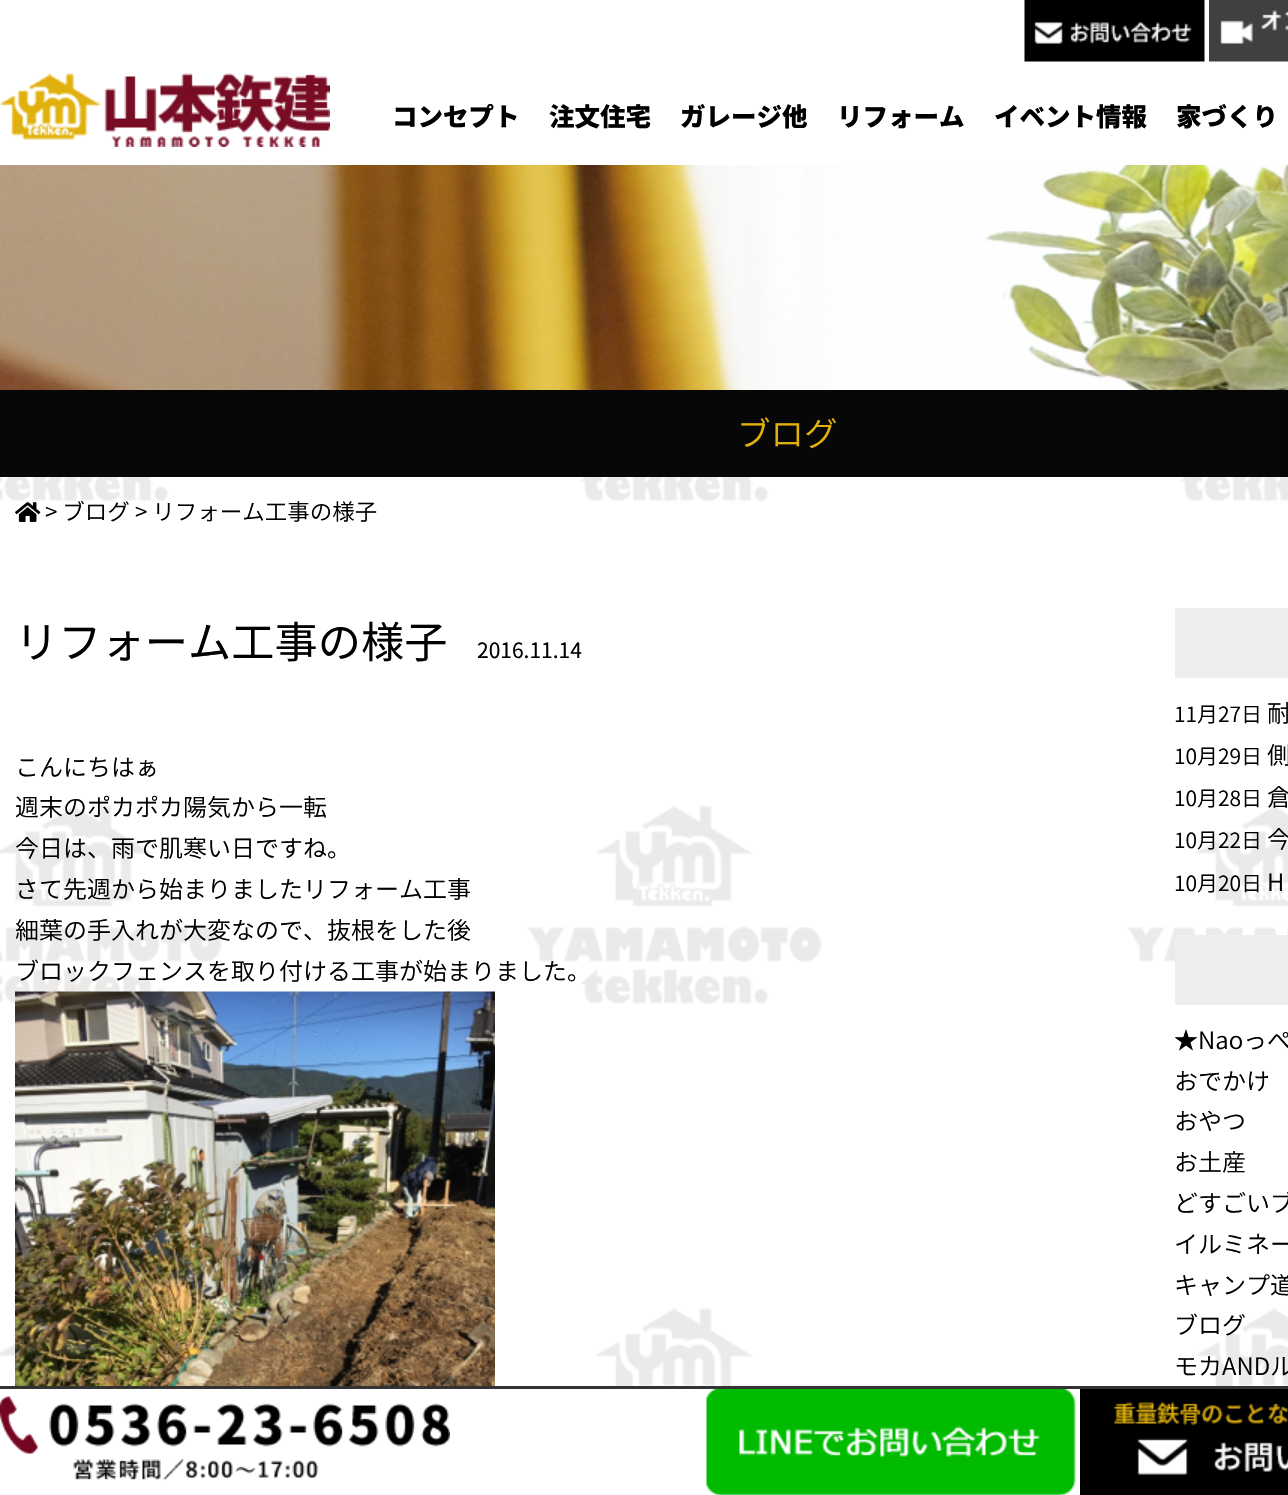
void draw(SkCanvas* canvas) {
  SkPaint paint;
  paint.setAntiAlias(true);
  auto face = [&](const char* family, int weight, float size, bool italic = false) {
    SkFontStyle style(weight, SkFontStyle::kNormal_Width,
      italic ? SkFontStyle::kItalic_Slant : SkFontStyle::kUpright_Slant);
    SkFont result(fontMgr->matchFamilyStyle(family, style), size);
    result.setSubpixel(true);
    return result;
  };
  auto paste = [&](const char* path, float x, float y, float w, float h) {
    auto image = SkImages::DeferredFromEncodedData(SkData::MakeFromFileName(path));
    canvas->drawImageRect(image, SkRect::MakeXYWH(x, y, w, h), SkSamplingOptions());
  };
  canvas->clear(0xffffffff);
  paste("img/1.png", 0, 477, 1288, 909);
  paste("img/2.png", 1024, 0, 181, 62);
  paste("img/3.png", 1209, 0, 79, 62);
  paste("img/4.png", 0, 73, 330, 74);
  paste("img/5.png", 0, 165, 1288, 225);
  paint.setColor(0xff070707);
  canvas->drawRect(SkRect::MakeXYWH(0, 390, 1288, 87), paint);
  paste("img/6.png", 15, 502, 26, 20);
  paste("img/7.png", 15, 991, 480, 395);
  {
    const struct { float x, y, w, h; SkColor color; } items[] = {
      {1175, 608, 113, 70, 0xffeeeeee},
      {1175, 935, 113, 70, 0xffeeeeee},
      {0, 1386, 1288, 3, 0xff333333},
    };
    for (auto [x, y, w, h, color] : items) {
      paint.setColor(color);
      canvas->drawRect(SkRect::MakeXYWH(x, y, w, h), paint);
    }
  }
  paste("img/8.png", 0, 1396, 450, 85);
  paste("img/9.png", 706, 1389, 370, 106);
  paste("img/10.png", 1080, 1389, 208, 106);
  auto f0 = face("Noto Sans CJK JP", 900, 25.5f);
  paint.setColor(0xff000000);
  {
    const struct { const char* s; float x, y; } items[] = {
      {"コンセプト", 392, 126},
      {"注文住宅", 549, 126},
      {"ガレージ他", 680, 126},
      {"リフォーム", 837, 126},
      {"イベント情報", 994, 126},
      {"家づくり", 1176, 126},
    };
    for (auto [s, x, y] : items) {
      canvas->drawString(s, x, y, f0, paint);
    }
  }
  auto f1 = face("Noto Sans CJK JP", 300, 33.5f);
  paint.setColor(0xffe0b10e);
  canvas->drawString("ブログ", 737, 446, f1, paint);
  auto f2 = face("Noto Sans CJK JP", 300, 22.5f);
  paint.setColor(0xff000000);
  canvas->drawString("> ブログ > リフォーム工事の様子", 45, 520, f2, paint);
  auto f3 = face("Noto Sans CJK JP", 400, 43.25f);
  canvas->drawString("リフォーム工事の様子", 15, 658, f3, paint);
  auto f4 = face("Noto Sans CJK JP", 400, 21);
  canvas->drawString("2016.11.14", 477, 658, f4, paint);
  auto f5 = face("Noto Sans CJK JP", 300, 24);
  {
    const struct { const char* s; float x, y; } items[] = {
      {"こんにちはぁ", 15, 776},
      {"週末のポカポカ陽気から一転", 15, 816},
      {"今日は、雨で肌寒い日ですね。", 15, 857},
      {"さて先週から始まりましたリフォーム工事", 15, 898},
      {"細葉の手入れが大変なので、抜根をした後", 15, 939},
      {"ブロックフェンスを取り付ける工事が始まりました。", 15, 980},
    };
    for (auto [s, x, y] : items) {
      canvas->drawString(s, x, y, f5, paint);
    }
  }
  auto f6 = face("Noto Sans CJK JP", 300, 21);
  canvas->drawString("11月27日", 1174, 722, f6, paint);
  canvas->drawString("耐", 1267, 722, f5, paint);
  canvas->drawString("10月29日", 1174, 764, f6, paint);
  canvas->drawString("側", 1267, 764, f5, paint);
  canvas->drawString("10月28日", 1174, 806, f6, paint);
  canvas->drawString("倉", 1267, 806, f5, paint);
  canvas->drawString("10月22日", 1174, 848, f6, paint);
  canvas->drawString("今", 1267, 848, f5, paint);
  canvas->drawString("10月20日", 1174, 891, f6, paint);
  {
    const struct { const char* s; float x, y; } items[] = {
      {"H", 1267, 891},
      {"★Naoっぺ", 1174, 1049},
      {"おでかけ", 1174, 1090},
      {"おやつ", 1174, 1130},
      {"お土産", 1174, 1171},
      {"どすごいブ", 1174, 1212},
      {"イルミネー", 1174, 1253},
      {"キャンプ道", 1174, 1294},
      {"ブログ", 1174, 1334},
      {"モカANDル", 1174, 1375},
    };
    for (auto [s, x, y] : items) {
      canvas->drawString(s, x, y, f5, paint);
    }
  }
}
